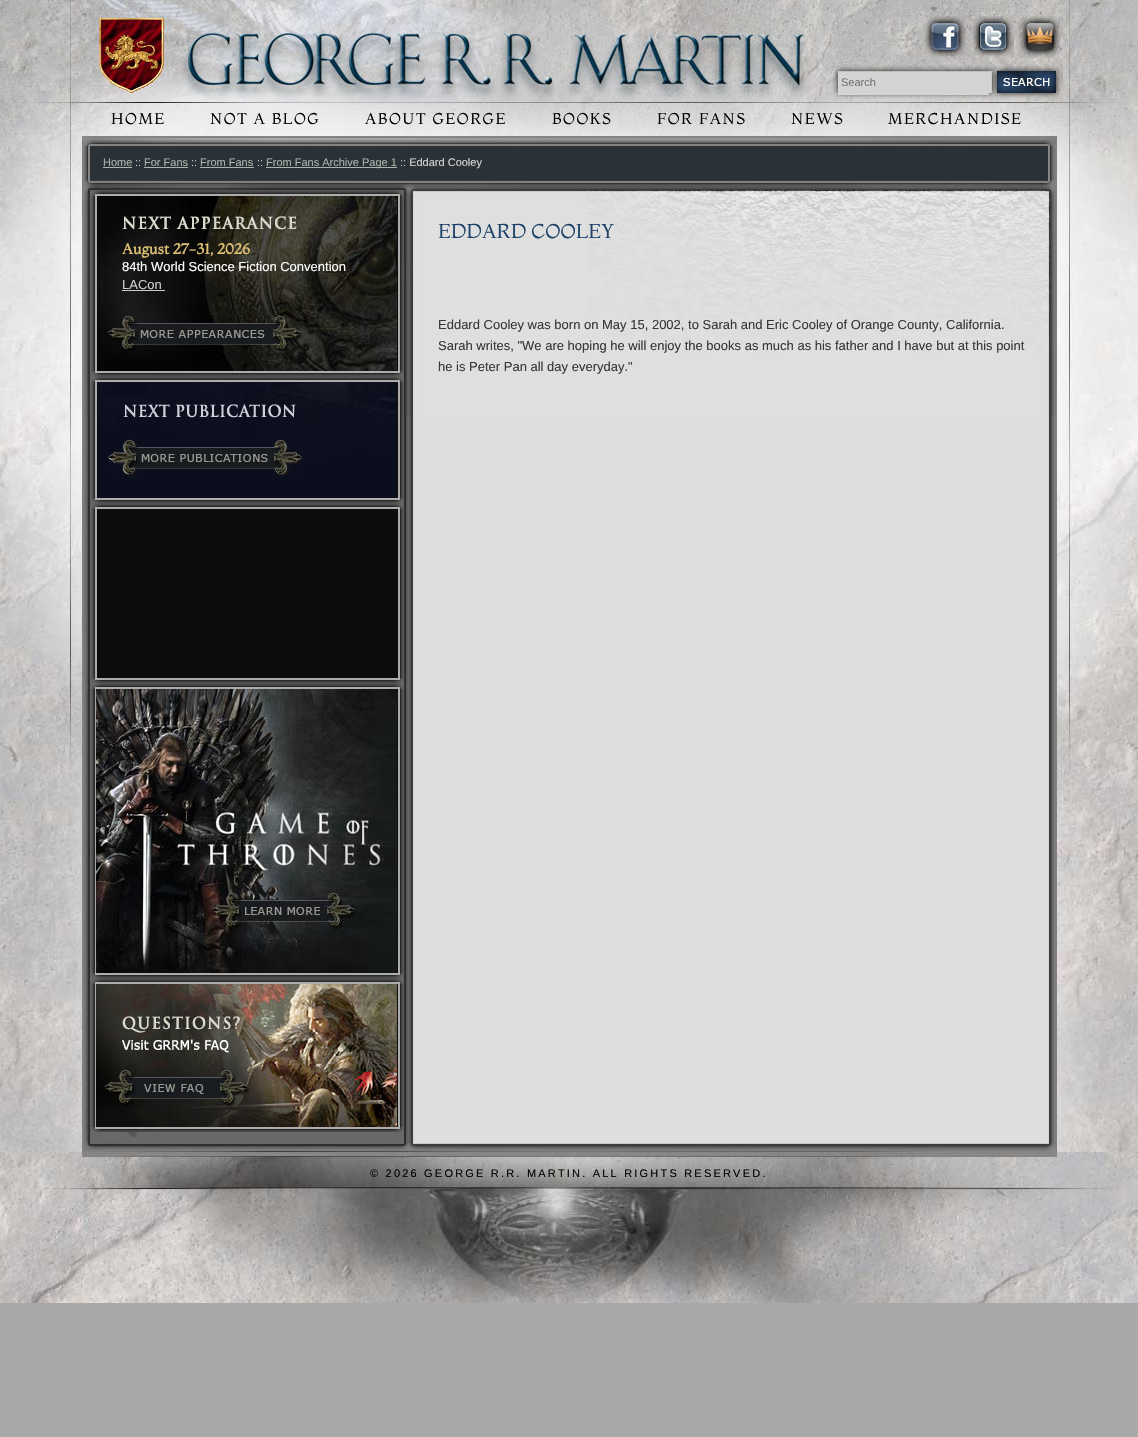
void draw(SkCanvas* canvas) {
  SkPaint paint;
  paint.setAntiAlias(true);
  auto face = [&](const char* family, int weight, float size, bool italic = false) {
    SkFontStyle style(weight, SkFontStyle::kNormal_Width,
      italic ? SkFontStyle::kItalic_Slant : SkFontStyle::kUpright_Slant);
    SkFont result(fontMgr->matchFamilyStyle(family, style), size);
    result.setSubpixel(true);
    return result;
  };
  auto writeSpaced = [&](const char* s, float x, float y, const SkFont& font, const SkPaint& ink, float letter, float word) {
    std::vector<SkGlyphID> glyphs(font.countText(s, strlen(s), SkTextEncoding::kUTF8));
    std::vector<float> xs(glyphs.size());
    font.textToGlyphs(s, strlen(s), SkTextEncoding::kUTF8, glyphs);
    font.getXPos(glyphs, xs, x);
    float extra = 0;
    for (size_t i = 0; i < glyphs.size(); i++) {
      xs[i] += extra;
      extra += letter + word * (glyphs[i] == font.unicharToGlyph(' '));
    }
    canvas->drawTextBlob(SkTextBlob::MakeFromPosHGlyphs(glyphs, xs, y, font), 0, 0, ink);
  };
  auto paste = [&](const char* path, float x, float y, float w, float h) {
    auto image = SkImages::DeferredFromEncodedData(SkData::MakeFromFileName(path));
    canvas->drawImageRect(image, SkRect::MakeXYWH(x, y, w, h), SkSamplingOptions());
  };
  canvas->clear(0xffa8a8a8);
  paste("img/1.png", 0, 793, 1138, 359);
  paste("img/2.png", 0, 138, 1138, 655);
  paste("img/3.png", 0, 0, 1138, 138);
  paste("img/4.png", 99, 18, 65, 75);
  paste("img/5.png", 167, 0, 655, 102);
  paste("img/6.png", 923, 16, 45, 42);
  paste("img/7.png", 971, 16, 43, 42);
  paste("img/8.png", 1018, 16, 45, 42);
  paste("img/9.png", 826, 64, 168, 37);
  paint.setColor(0xffd4d4d4);
  canvas->drawRect(SkRect::MakeXYWH(838, 72, 151, 23), paint);
  paint.setColor(0xffbfbfbf);
  canvas->drawRect(SkRect::MakeXYWH(838, 71, 151, 1), paint);
  paste("img/10.png", 994, 64, 69, 37);
  paste("img/11.png", 83, 146, 973, 1006);
  paste("img/12.png", 85, 146, 967, 34);
  paste("img/13.png", 83, 138, 973, 8);
  {
    const struct { float x, y, w, h; SkColor color; } items[] = {
      {103, 167, 29, 1, 0xffabb4ac},
      {144, 167, 44, 1, 0xffabb4ac},
      {200, 167, 54, 1, 0xffabb4ac},
      {266, 167, 131, 1, 0xffabb4ac},
    };
    for (auto [x, y, w, h, color] : items) {
      paint.setColor(color);
      canvas->drawRect(SkRect::MakeXYWH(x, y, w, h), paint);
    }
  }
  paste("img/14.png", 83, 180, 973, 6);
  paste("img/15.png", 83, 186, 972, 4);
  paste("img/16.png", 83, 190, 973, 226);
  paste("img/17.png", 83, 691, 187, 448);
  paste("img/18.png", 90, 190, 314, 6);
  paste("img/19.png", 90, 196, 314, 175);
  paste("img/20.png", 97, 196, 300, 175);
  paste("img/21.png", 122, 216, 175, 14);
  paint.setColor(0xffcccccc);
  canvas->drawRect(SkRect::MakeXYWH(122, 290, 43, 1), paint);
  paste("img/22.png", 107, 315, 196, 36);
  paste("img/23.png", 90, 371, 314, 5);
  paste("img/18.png", 90, 376, 314, 6);
  paste("img/24.png", 90, 382, 314, 116);
  paste("img/25.png", 97, 382, 300, 116);
  paste("img/26.png", 123, 404, 173, 14);
  paste("img/27.png", 108, 439, 195, 37);
  paste("img/23.png", 90, 498, 314, 5);
  paste("img/18.png", 90, 503, 314, 6);
  paste("img/28.png", 90, 509, 314, 169);
  paste("img/23.png", 90, 678, 314, 5);
  paste("img/18.png", 90, 683, 314, 6);
  paste("img/29.png", 90, 689, 314, 284);
  paste("img/30.png", 96, 689, 301, 284);
  paste("img/23.png", 90, 973, 314, 5);
  paste("img/18.png", 90, 978, 314, 6);
  paste("img/31.png", 90, 984, 314, 143);
  paste("img/32.png", 96, 984, 301, 143);
  paste("img/33.png", 91, 1127, 313, 5);
  paste("img/34.png", 84, 1142, 972, 10);
  paste("img/35.png", 0, 1152, 1138, 151);
  auto f0 = face("Liberation Sans", 400, 11);
  paint.setColor(0xff757575);
  canvas->drawString("Search", 841, 86, f0, paint);
  auto f1 = face("Montaga", 400, 15.5f);
  paint.setColor(0xff000000);
  {
    const struct { const char* s; float x, y; } items[] = {
      {"HOME", 111, 124},
      {"NOT A BLOG", 210, 124},
      {"ABOUT GEORGE", 365, 124},
      {"BOOKS", 552, 124},
      {"FOR FANS", 657, 124},
      {"NEWS", 791, 124},
      {"MERCHANDISE", 888, 124},
    };
    for (auto [s, x, y] : items) {
      writeSpaced(s, x, y, f1, paint, 1.5f, 0);
    }
  }
  paint.setColor(0xffabb4ac);
  canvas->drawString("Home", 103, 166, f0, paint);
  paint.setColor(0xffd9d5d3);
  canvas->drawString("::", 135, 166, f0, paint);
  paint.setColor(0xffabb4ac);
  canvas->drawString("For Fans", 144, 166, f0, paint);
  paint.setColor(0xffd9d5d3);
  canvas->drawString("::", 191, 166, f0, paint);
  paint.setColor(0xffabb4ac);
  canvas->drawString("From Fans", 200, 166, f0, paint);
  paint.setColor(0xffd9d5d3);
  canvas->drawString("::", 257, 166, f0, paint);
  paint.setColor(0xffabb4ac);
  canvas->drawString("From Fans Archive Page 1", 266, 166, f0, paint);
  paint.setColor(0xffd9d5d3);
  canvas->drawString(":: Eddard Cooley", 400, 166, f0, paint);
  auto f2 = face("Montaga", 700, 15);
  paint.setColor(0xffdbbf73);
  canvas->drawString("August 27-31, 2026", 122, 254, f2, paint);
  auto f3 = face("Liberation Sans", 400, 13);
  paint.setColor(0xffffffff);
  canvas->drawString("84th World Science Fiction Convention", 122, 271, f3, paint);
  paint.setColor(0xffcccccc);
  canvas->drawString("LACon", 122, 289, f3, paint);
  auto f4 = face("Montaga", 400, 20);
  paint.setColor(0xff1c4268);
  canvas->drawString("EDDARD COOLEY", 438, 238, f4, paint);
  paint.setColor(0xff373737);
  {
    const struct { const char* s; float x, y; } items[] = {
      {"Eddard Cooley was born on May 15, 2002, to Sarah and Eric Cooley of Orange County, California.", 438, 329},
      {"Sarah writes, \"We are hoping he will enjoy the books as much as his father and I have but at this point", 438, 350},
      {"he is Peter Pan all day everyday.\"", 438, 371},
    };
    for (auto [s, x, y] : items) {
      canvas->drawString(s, x, y, f3, paint);
    }
  }
  paint.setColor(0xff000000);
  writeSpaced("© 2026 GEORGE R.R. MARTIN. ALL RIGHTS RESERVED.", 370, 1177, f0, paint, 2.2f, 0);
}
